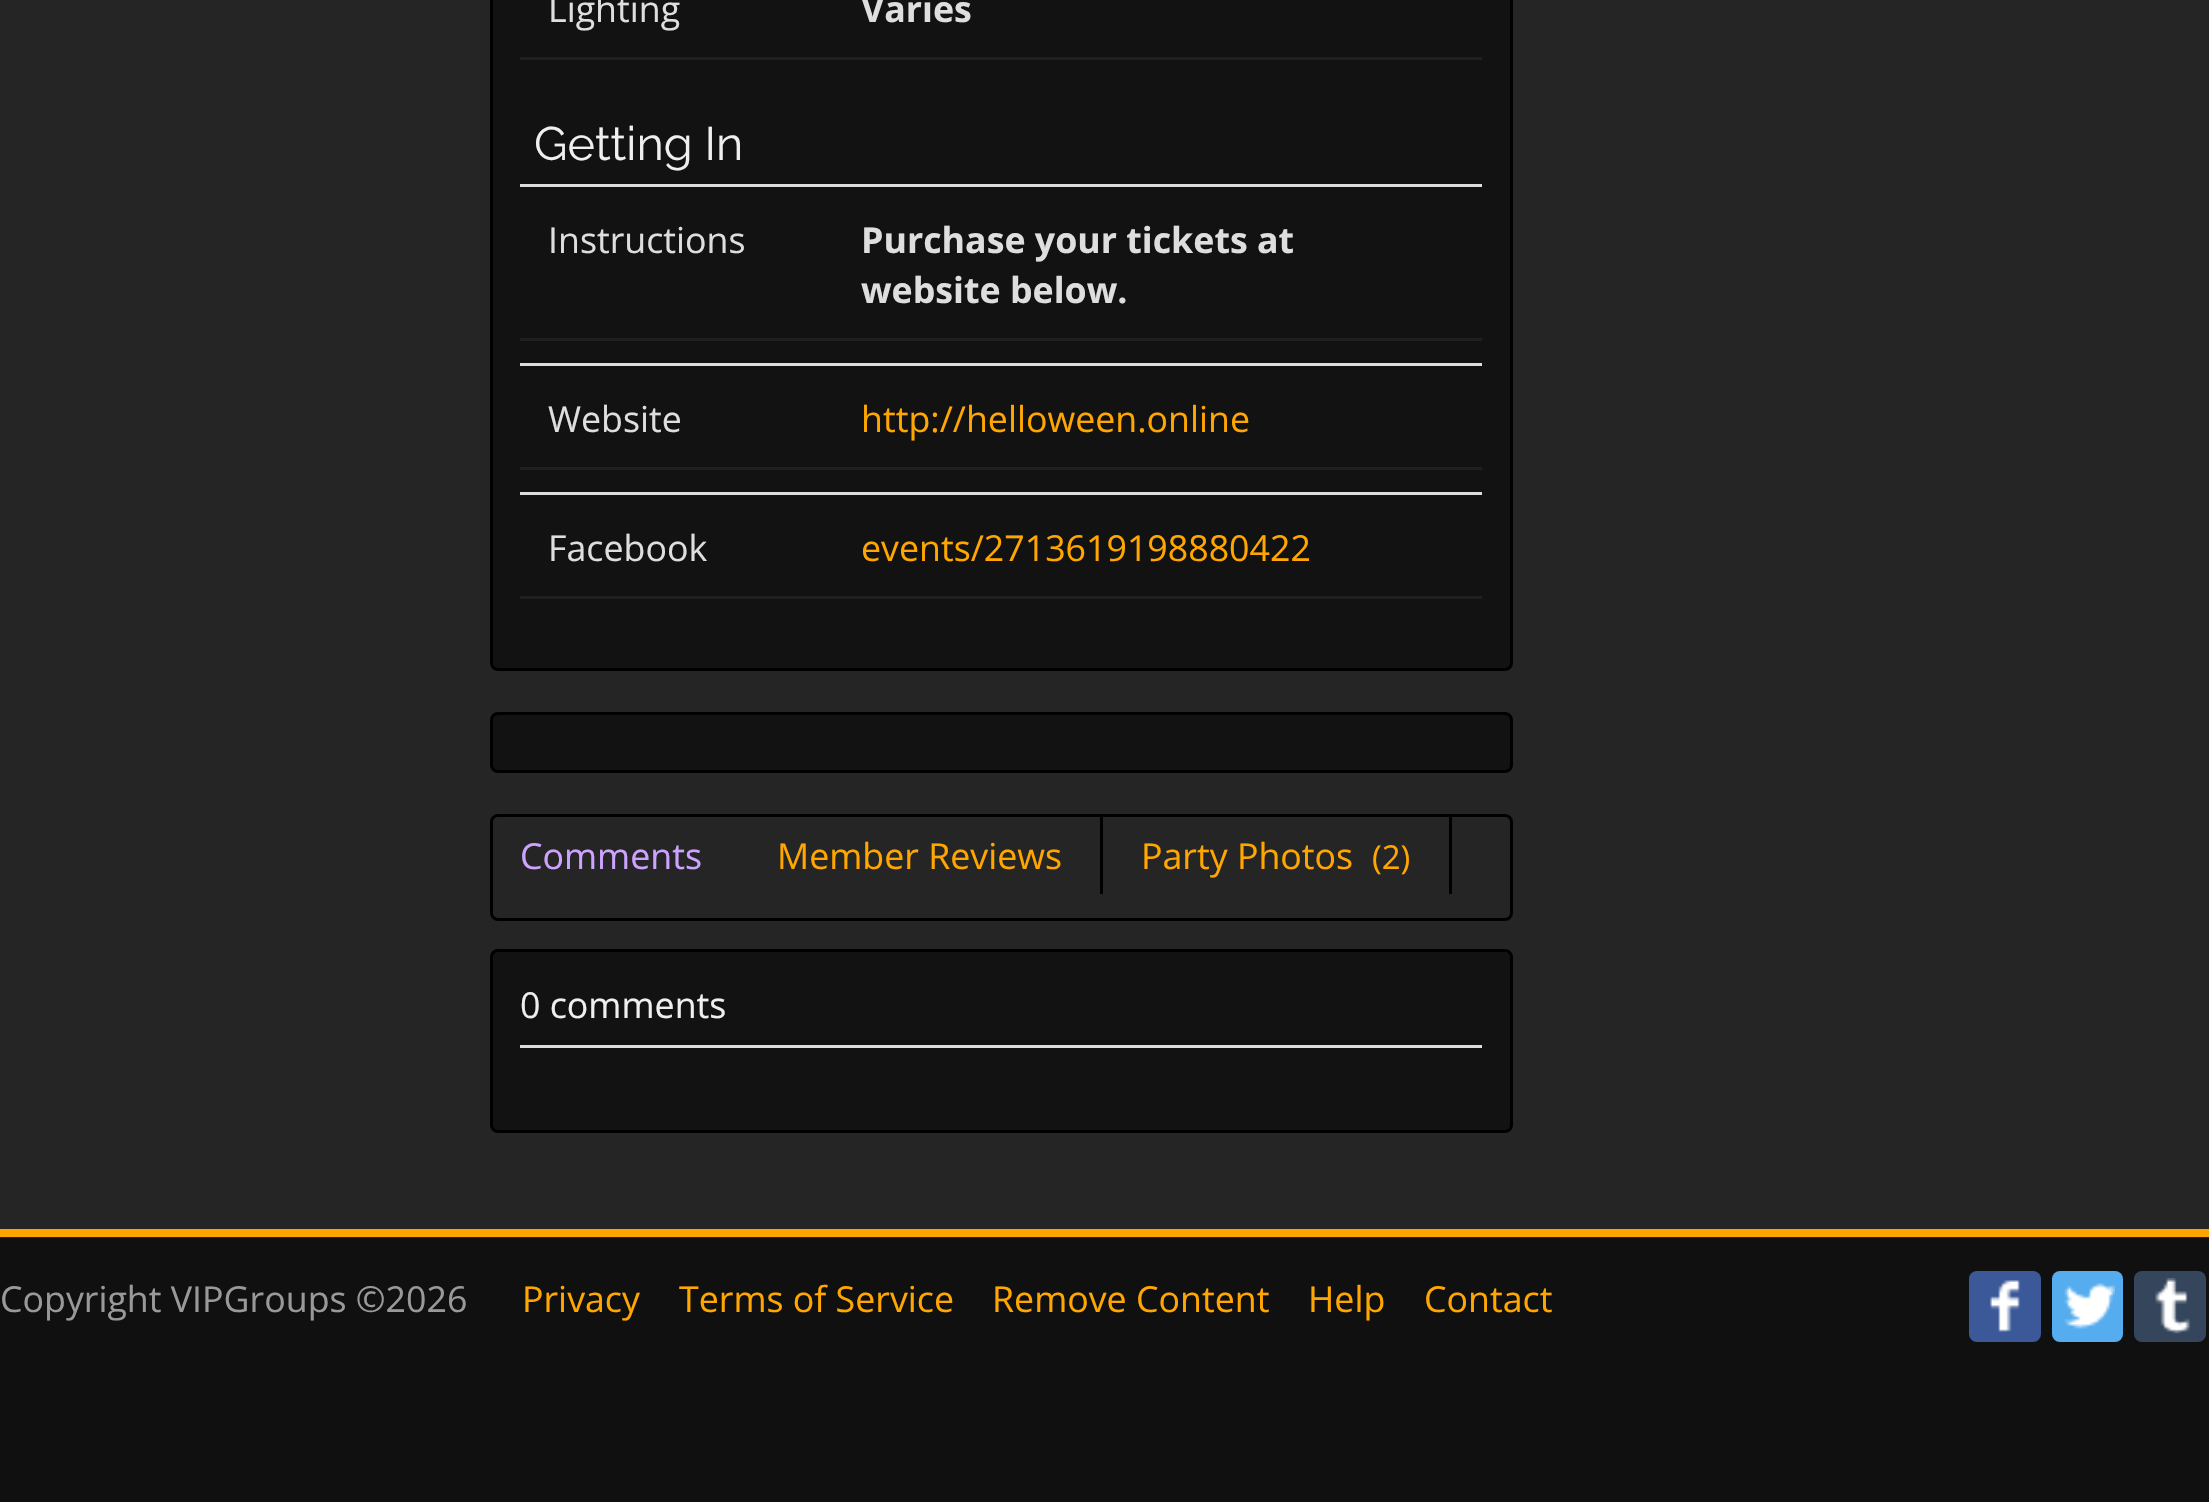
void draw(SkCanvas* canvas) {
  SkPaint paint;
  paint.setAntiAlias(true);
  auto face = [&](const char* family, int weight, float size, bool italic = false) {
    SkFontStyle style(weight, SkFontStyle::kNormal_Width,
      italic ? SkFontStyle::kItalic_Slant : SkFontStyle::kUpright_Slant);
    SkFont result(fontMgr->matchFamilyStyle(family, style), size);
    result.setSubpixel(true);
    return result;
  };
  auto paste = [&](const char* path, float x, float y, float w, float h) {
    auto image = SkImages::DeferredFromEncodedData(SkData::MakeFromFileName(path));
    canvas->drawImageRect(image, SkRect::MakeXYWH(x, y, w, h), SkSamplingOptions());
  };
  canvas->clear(0xff252525);
  paint.setColor(0xff121212);
  canvas->drawRoundRect(SkRect::MakeXYWH(491.5f, -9.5f, 1020, 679), 6.5f, 6.5f, paint);
  paint.setStroke(true);
  paint.setStrokeWidth(3);
  paint.setColor(0xff000000);
  canvas->drawRoundRect(SkRect::MakeXYWH(491.5f, -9.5f, 1020, 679), 6.5f, 6.5f, paint);
  paint.setStroke(false);
  {
    const struct { float x, y, w, h; SkColor color; } items[] = {
      {520, 57, 962, 3, 0xff202020},
      {520, 338, 962, 3, 0xff202020},
      {520, 184, 962, 3, 0xffdddddd},
      {520, 467, 962, 3, 0xff202020},
      {520, 363, 962, 3, 0xffdddddd},
      {520, 596, 962, 3, 0xff202020},
      {520, 492, 962, 3, 0xffdddddd},
    };
    for (auto [x, y, w, h, color] : items) {
      paint.setColor(color);
      canvas->drawRect(SkRect::MakeXYWH(x, y, w, h), paint);
    }
  }
  paint.setColor(0xff121212);
  canvas->drawRoundRect(SkRect::MakeXYWH(491.5f, 713.5f, 1020, 58), 6.5f, 6.5f, paint);
  paint.setStroke(true);
  paint.setColor(0xff000000);
  canvas->drawRoundRect(SkRect::MakeXYWH(491.5f, 713.5f, 1020, 58), 6.5f, 6.5f, paint);
  canvas->drawRoundRect(SkRect::MakeXYWH(491.5f, 815.5f, 1020, 104), 6.5f, 6.5f, paint);
  paint.setStroke(false);
  canvas->drawRect(SkRect::MakeXYWH(1100, 817, 3, 77), paint);
  canvas->drawRect(SkRect::MakeXYWH(1449, 817, 3, 77), paint);
  paint.setColor(0xff121212);
  canvas->drawRoundRect(SkRect::MakeXYWH(491.5f, 950.5f, 1020, 181), 6.5f, 6.5f, paint);
  paint.setStroke(true);
  paint.setColor(0xff000000);
  canvas->drawRoundRect(SkRect::MakeXYWH(491.5f, 950.5f, 1020, 181), 6.5f, 6.5f, paint);
  paint.setStroke(false);
  {
    const struct { float x, y, w, h; SkColor color; } items[] = {
      {520, 1045, 962, 3, 0xffdddddd},
      {0, 1238, 2209, 264, 0xff101010},
      {0, 1229, 2209, 8, 0xffffa500},
    };
    for (auto [x, y, w, h, color] : items) {
      paint.setColor(color);
      canvas->drawRect(SkRect::MakeXYWH(x, y, w, h), paint);
    }
  }
  paint.setColor(0xff3b5998);
  canvas->drawRoundRect(SkRect::MakeXYWH(1969, 1271, 72, 71), 8, 8, paint);
  paste("img/1.png", 1990, 1280, 30, 52);
  paint.setColor(0xff55acee);
  canvas->drawRoundRect(SkRect::MakeXYWH(2052, 1271, 71, 71), 8, 8, paint);
  paste("img/2.png", 2064, 1283, 51, 46);
  paint.setColor(0xff35465c);
  canvas->drawRoundRect(SkRect::MakeXYWH(2134, 1271, 72, 71), 8, 8, paint);
  paste("img/3.png", 2155, 1278, 35, 56);
  auto f0 = face("Open Sans", 400, 35.75f);
  paint.setColor(0xffdedede);
  canvas->drawString("Lighting", 548, 22, f0, paint);
  auto f1 = face("Open Sans", 700, 35.75f);
  canvas->drawString("Varies", 861, 22, f1, paint);
  auto f2 = face("Raleway", 400, 46.75f);
  paint.setColor(0xffefefef);
  canvas->drawString("Getting In", 534, 160, f2, paint);
  paint.setColor(0xffdedede);
  canvas->drawString("Instructions", 548, 253, f0, paint);
  canvas->drawString("Purchase your tickets at", 861, 253, f1, paint);
  canvas->drawString("website below.", 861, 303, f1, paint);
  canvas->drawString("Website", 548, 432, f0, paint);
  paint.setColor(0xffffa600);
  canvas->drawString("http://helloween.online", 861, 432, f0, paint);
  paint.setColor(0xffdedede);
  canvas->drawString("Facebook", 548, 561, f0, paint);
  paint.setColor(0xffffa600);
  canvas->drawString("events/2713619198880422", 861, 561, f0, paint);
  paint.setColor(0xffcea3ff);
  canvas->drawString("Comments", 520, 869, f0, paint);
  paint.setColor(0xffffa600);
  canvas->drawString("Member Reviews", 777, 869, f0, paint);
  canvas->drawString("Party Photos", 1141, 869, f0, paint);
  auto f3 = face("Open Sans", 400, 33);
  canvas->drawString("(2)", 1372, 869, f3, paint);
  paint.setColor(0xffefefef);
  canvas->drawString("0 comments", 520, 1018, f0, paint);
  paint.setColor(0xff999999);
  canvas->drawString("Copyright VIPGroups ©2026", 0, 1312, f0, paint);
  paint.setColor(0xffffa600);
  {
    const struct { const char* s; float x, y; } items[] = {
      {"Privacy", 522, 1312},
      {"Terms of Service", 679, 1312},
      {"Remove Content", 992, 1312},
      {"Help", 1308, 1312},
      {"Contact", 1424, 1312},
    };
    for (auto [s, x, y] : items) {
      canvas->drawString(s, x, y, f0, paint);
    }
  }
}
